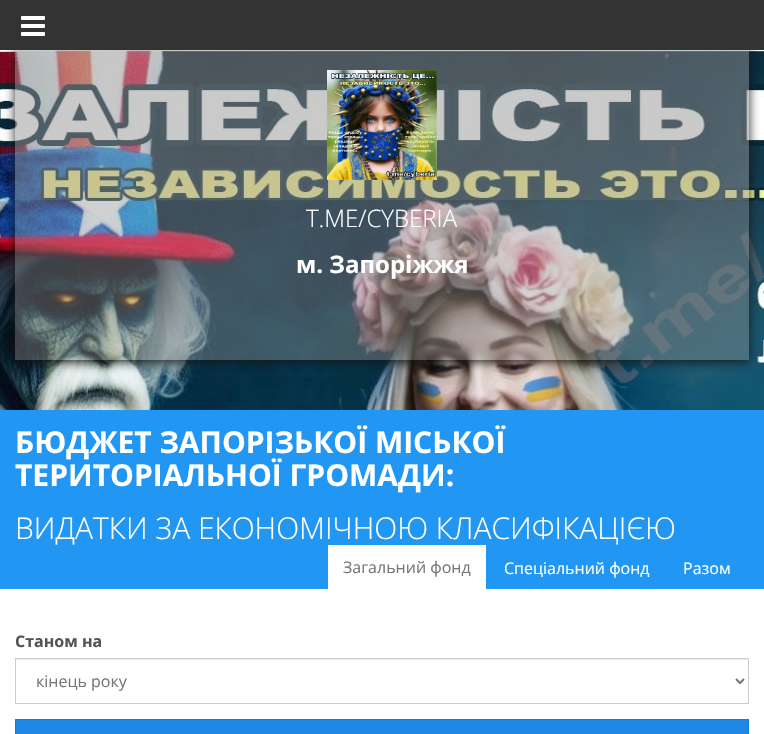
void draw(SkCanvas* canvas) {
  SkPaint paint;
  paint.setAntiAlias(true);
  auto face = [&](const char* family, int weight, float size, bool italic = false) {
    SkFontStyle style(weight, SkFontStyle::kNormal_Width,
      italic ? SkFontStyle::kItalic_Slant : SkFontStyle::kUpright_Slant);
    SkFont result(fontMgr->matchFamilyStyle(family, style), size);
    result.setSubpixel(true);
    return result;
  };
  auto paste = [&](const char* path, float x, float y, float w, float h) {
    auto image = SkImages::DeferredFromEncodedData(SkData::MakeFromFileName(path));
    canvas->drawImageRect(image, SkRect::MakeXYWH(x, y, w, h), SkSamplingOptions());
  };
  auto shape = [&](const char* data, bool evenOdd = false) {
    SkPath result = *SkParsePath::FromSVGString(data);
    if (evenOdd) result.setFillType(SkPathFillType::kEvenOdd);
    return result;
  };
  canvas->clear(0xffffffff);
  paint.setColor(0xff333333);
  canvas->drawRect(SkRect::MakeXYWH(0, 0, 764, 50), paint);
  paste("img/1.png", 21, 16, 24, 20);
  paste("img/2.png", 0, 50, 764, 360);
  canvas->save();
  canvas->clipRect(SkRect::MakeXYWH(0, 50, 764, 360));
  canvas->clipPath(shape("M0 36H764V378H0ZM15 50H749V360H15Z", true), true);
  paint.setColor(0xe6141414);
  paint.setMaskFilter(SkMaskFilter::MakeBlur(kNormal_SkBlurStyle, 5));
  canvas->drawRect(SkRect::MakeXYWH(15, 52, 734, 310), paint);
  paint.setMaskFilter(nullptr);
  canvas->restore();
  paint.setColor(0x80969696);
  canvas->drawRect(SkRect::MakeXYWH(15, 50, 734, 150), paint);
  paste("img/3.png", 327, 70, 110, 110);
  {
    const struct { float x, y, w, h; SkColor color; } items[] = {
      {15, 200, 734, 160, 0x66969696},
      {0, 410, 764, 179, 0xff2196f3},
      {328, 545, 158, 44, 0xffffffff},
      {16, 659, 732, 1, 0xffececec},
    };
    for (auto [x, y, w, h, color] : items) {
      paint.setColor(color);
      canvas->drawRect(SkRect::MakeXYWH(x, y, w, h), paint);
    }
  }
  paint.setStroke(true);
  paint.setStrokeWidth(1);
  paint.setColor(0xffcccccc);
  canvas->drawRect(SkRect::MakeXYWH(15.5f, 658.5f, 733, 45), paint);
  paint.setStrokeWidth(2);
  paint.setColor(0xff767676);
  canvas->drawPath(shape("M736 679L740 683L744 679"), paint);
  paint.setStroke(false);
  paint.setColor(0xff1e88e5);
  canvas->drawRect(SkRect::MakeXYWH(15.5f, 719.5f, 733, 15), paint);
  paint.setStroke(true);
  paint.setStrokeWidth(1);
  paint.setColor(0xff187bd1);
  canvas->drawRect(SkRect::MakeXYWH(15.5f, 719.5f, 733, 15), paint);
  auto f0 = face("Open Sans", 300, 24);
  paint.setStroke(false);
  paint.setColor(0xffffffff);
  canvas->drawString("T.ME/CYBERIA", 306, 227, f0, paint);
  auto f1 = face("Open Sans", 700, 24);
  canvas->drawString("м. Запоріжжя", 296, 273, f1, paint);
  auto f2 = face("Open Sans", 700, 30);
  canvas->drawString("БЮДЖЕТ ЗАПОРІЗЬКОЇ МІСЬКОЇ", 15, 453, f2, paint);
  canvas->drawString("ТЕРИТОРІАЛЬНОЇ ГРОМАДИ:", 15, 486, f2, paint);
  auto f3 = face("Open Sans", 300, 30);
  canvas->drawString("ВИДАТКИ ЗА ЕКОНОМІЧНОЮ КЛАСИФІКАЦІЄЮ", 15, 539, f3, paint);
  auto f4 = face("Open Sans", 400, 16);
  paint.setColor(0xff767676);
  canvas->drawString("Загальний фонд", 343, 573, f4, paint);
  paint.setColor(0xffffffff);
  canvas->drawString("Спеціальний фонд", 504, 574, f4, paint);
  canvas->drawString("Разом", 683, 574, f4, paint);
  auto f5 = face("Open Sans", 700, 16);
  paint.setColor(0xff545454);
  canvas->drawString("Станом на", 15, 647, f5, paint);
  paint.setColor(0xff767676);
  canvas->drawString("кінець року", 36, 687, f4, paint);
}
